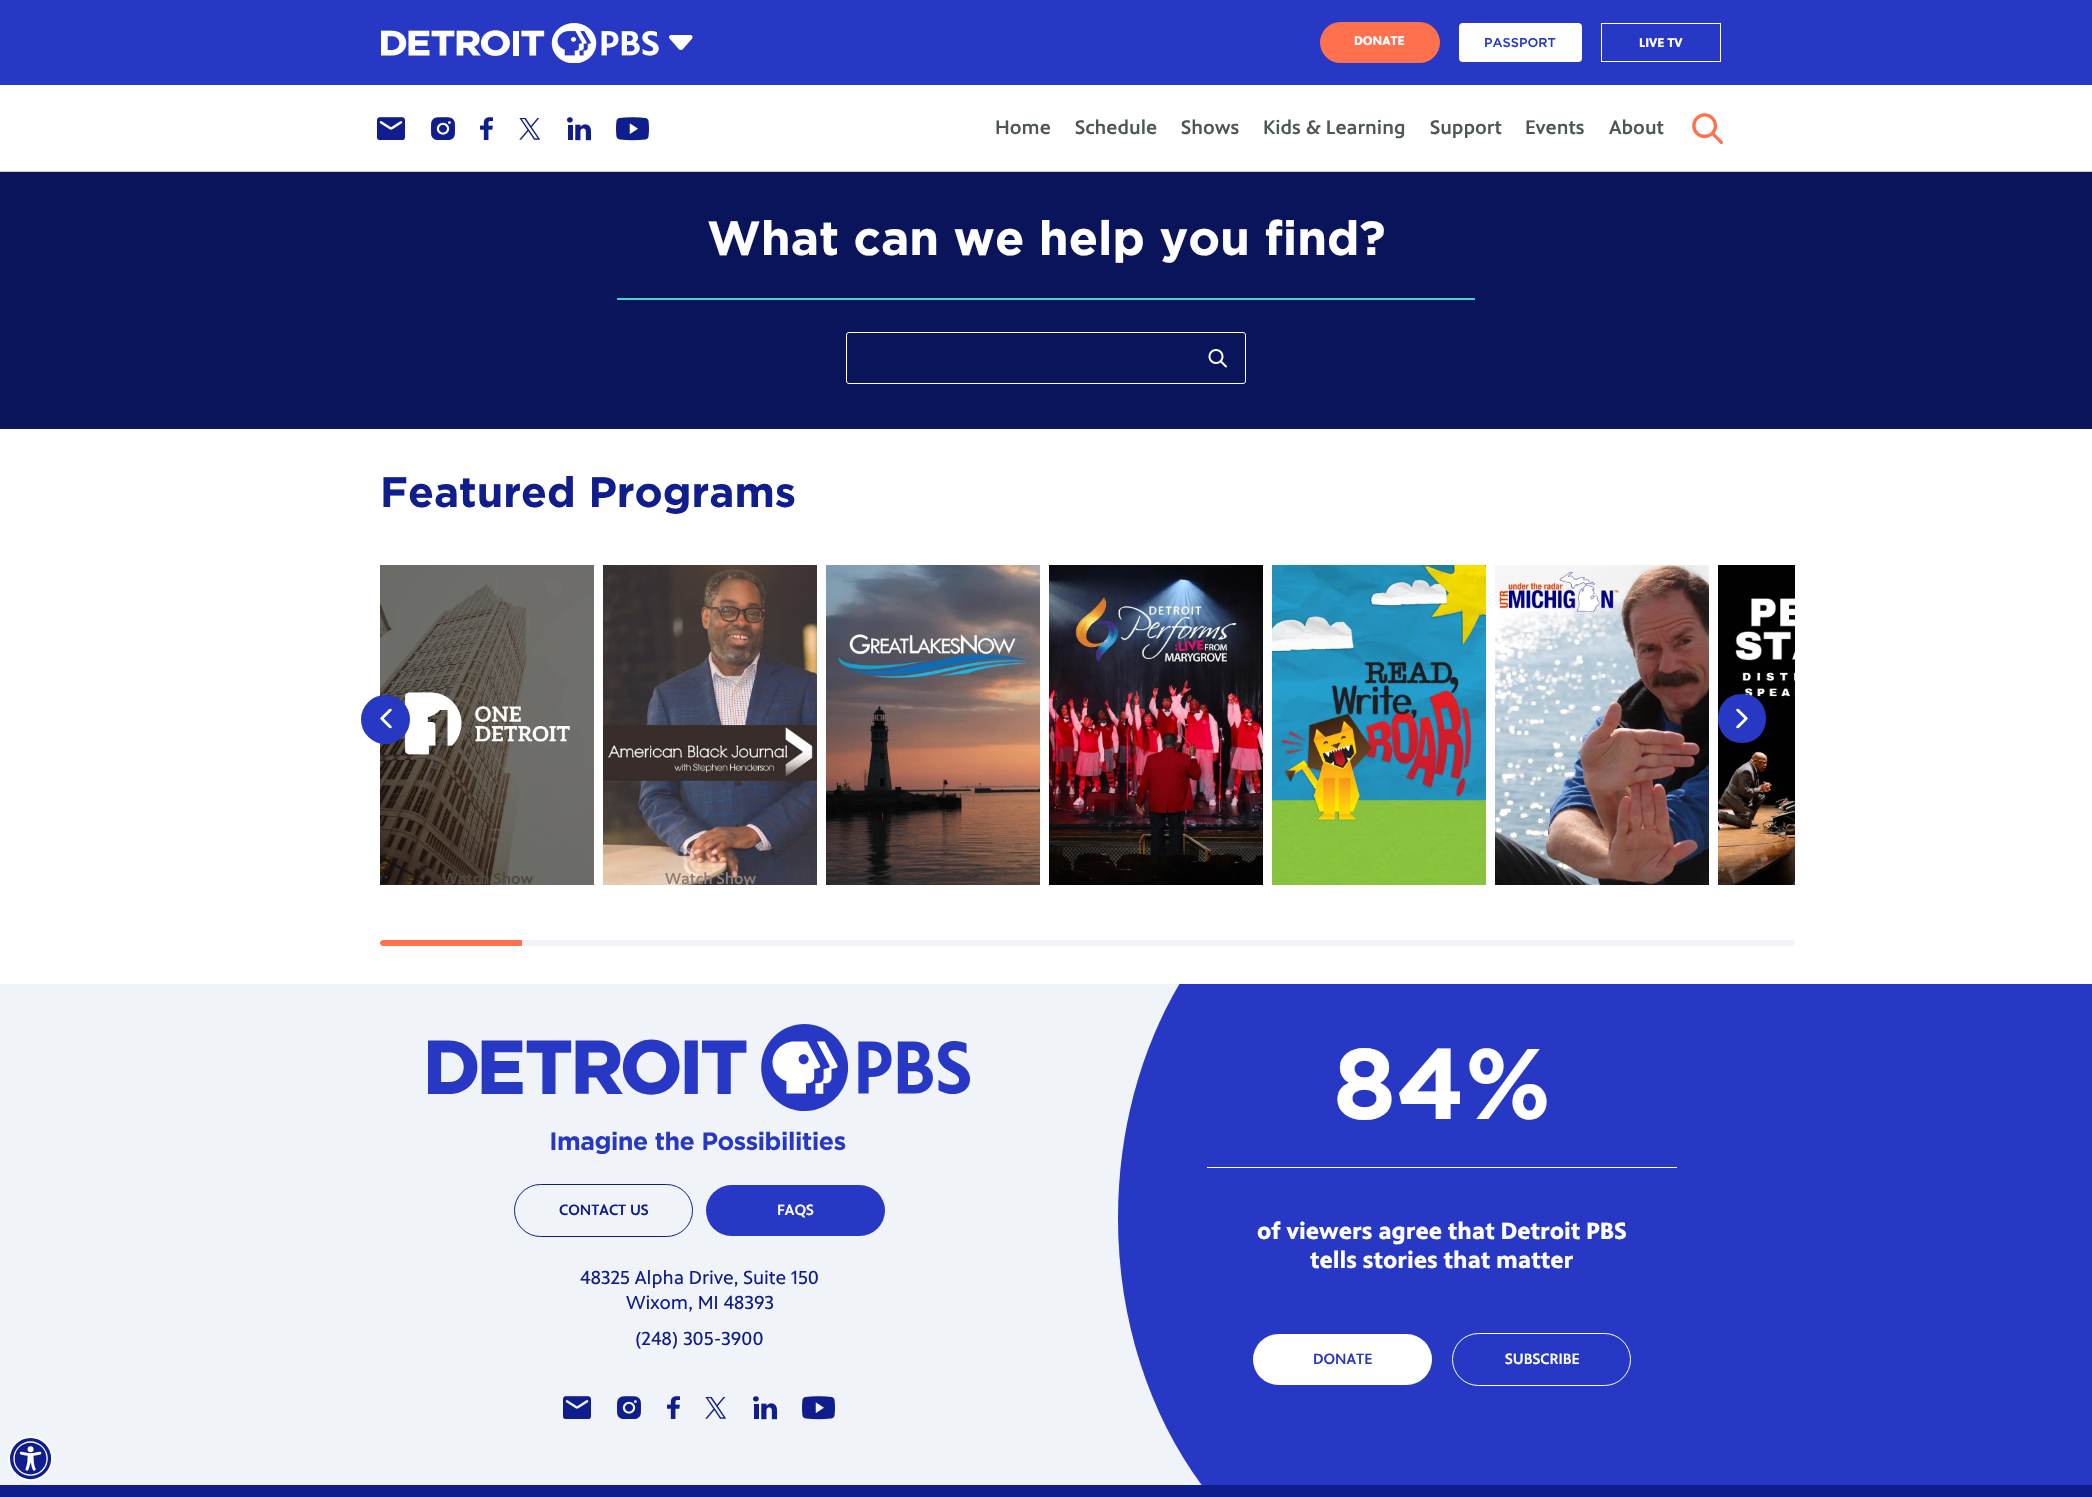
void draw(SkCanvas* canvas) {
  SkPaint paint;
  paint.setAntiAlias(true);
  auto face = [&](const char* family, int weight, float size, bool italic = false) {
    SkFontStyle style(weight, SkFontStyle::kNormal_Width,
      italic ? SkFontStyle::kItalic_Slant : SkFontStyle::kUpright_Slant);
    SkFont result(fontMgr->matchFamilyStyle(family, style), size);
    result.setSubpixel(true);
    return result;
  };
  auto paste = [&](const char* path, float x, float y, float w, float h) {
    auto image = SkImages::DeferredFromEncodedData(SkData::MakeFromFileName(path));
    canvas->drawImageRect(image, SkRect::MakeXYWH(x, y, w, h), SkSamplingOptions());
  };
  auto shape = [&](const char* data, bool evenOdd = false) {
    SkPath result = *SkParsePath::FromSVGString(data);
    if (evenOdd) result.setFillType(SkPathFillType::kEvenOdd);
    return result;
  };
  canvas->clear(0xffffffff);
  paint.setColor(0xff2638c4);
  canvas->drawRect(SkRect::MakeXYWH(0, 0, 2092, 85), paint);
  paste("img/1.png", 381, 23, 278, 40);
  paste("img/2.png", 669, 35, 24, 15);
  paint.setColor(0xfffe704e);
  canvas->drawRoundRect(SkRect::MakeXYWH(1320, 22, 120, 41), 20.5f, 20.5f, paint);
  paint.setColor(0xffffffff);
  canvas->drawRoundRect(SkRect::MakeXYWH(1459, 23, 123, 39), 4, 4, paint);
  paint.setStroke(true);
  paint.setStrokeWidth(1);
  canvas->drawRect(SkRect::MakeXYWH(1601.5f, 23.5f, 119, 38), paint);
  paint.setStroke(false);
  paint.setColor(0xffcfd1d2);
  canvas->drawRect(SkRect::MakeXYWH(0, 171, 2092, 1), paint);
  paste("img/3.png", 377, 117, 28, 23);
  paste("img/4.png", 431, 117, 24, 23);
  paste("img/5.png", 480, 117, 13, 23);
  paste("img/6.png", 519, 118, 21, 22);
  paste("img/7.png", 567, 117, 24, 24);
  paste("img/8.png", 616, 117, 33, 24);
  paste("img/9.png", 1692, 113, 31, 31);
  paint.setColor(0xff0a145a);
  canvas->drawRect(SkRect::MakeXYWH(0, 172, 2092, 257), paint);
  paint.setColor(0xff48d3cd);
  canvas->drawRect(SkRect::MakeXYWH(617, 298, 858, 2), paint);
  paint.setStroke(true);
  paint.setColor(0xffffffff);
  canvas->drawRoundRect(SkRect::MakeXYWH(846.5f, 332.5f, 399, 51), 2.5f, 2.5f, paint);
  paste("img/10.png", 1208, 349, 19, 19);
  paste("img/13.png", 380, 565, 214, 320);
  paint.setStroke(false);
  paint.setColor(0xff2638c4);
  canvas->drawCircle(385.5f, 719.5f, 24.5f, paint);
  paste("img/11.png", 380, 708, 12, 21);
  paste("img/19.png", 1718, 565, 77, 320);
  canvas->drawPath(shape("M1742 743C1710 743 1710 694 1742 694C1774 694 1774 743 1742 743Z"), paint);
  paste("img/12.png", 1736, 708, 12, 21);
  paste("img/14.png", 603, 565, 214, 320);
  paste("img/15.png", 826, 565, 214, 320);
  paste("img/16.png", 1049, 565, 214, 320);
  paste("img/17.png", 1272, 565, 214, 320);
  paste("img/18.png", 1495, 565, 214, 320);
  paint.setColor(0xfff0f3f8);
  canvas->drawRoundRect(SkRect::MakeXYWH(380, 940, 1415, 6), 3, 3, paint);
  paint.setColor(0xfffe704e);
  canvas->drawPath(shape("M383 940H522V946H383C381.5 946 380 944.5 380 943C380 941.5 381.5 940 383 940Z"), paint);
  paint.setColor(0xfff0f3f8);
  canvas->drawRect(SkRect::MakeXYWH(0, 984, 1202, 501), paint);
  paint.setColor(0xff2638c4);
  canvas->drawRect(SkRect::MakeXYWH(1766, 984, 326, 501), paint);
  paste("img/20.png", 428, 1024, 542, 130);
  paint.setStroke(true);
  paint.setColor(0xff0f1e8c);
  canvas->drawRoundRect(SkRect::MakeXYWH(514.5f, 1184.5f, 178, 52), 26, 26, paint);
  paint.setStroke(false);
  paint.setColor(0xff2638c4);
  canvas->drawRoundRect(SkRect::MakeXYWH(706, 1185, 179, 51), 25.5f, 25.5f, paint);
  paste("img/21.png", 563, 1396, 28, 23);
  paste("img/22.png", 617, 1396, 24, 23);
  paste("img/23.png", 667, 1396, 13, 23);
  paste("img/24.png", 705, 1397, 21, 22);
  paste("img/25.png", 753, 1396, 24, 24);
  paste("img/26.png", 802, 1396, 33, 24);
  canvas->save();
  canvas->clipRect(SkRect::MakeXYWH(326, 984, 1440, 501));
  canvas->drawPath(shape("M1442 819H1766V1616H1442C1263 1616 1118 1438 1118 1218C1118 997 1263 819 1442 819Z"), paint);
  canvas->restore();
  paint.setColor(0xffffffff);
  canvas->drawRect(SkRect::MakeXYWH(1207, 1167, 470, 1), paint);
  canvas->drawRoundRect(SkRect::MakeXYWH(1253, 1334, 179, 51), 25.5f, 25.5f, paint);
  paint.setStroke(true);
  canvas->drawRoundRect(SkRect::MakeXYWH(1452.5f, 1333.5f, 178, 52), 26, 26, paint);
  paint.setStroke(false);
  paint.setColor(0xff0f1e8c);
  canvas->drawRect(SkRect::MakeXYWH(0, 1485, 2092, 12), paint);
  paste("img/27.png", 8, 1436, 45, 45);
  auto f0 = face("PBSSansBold", 700, 12.75f);
  paint.setColor(0xffffffff);
  canvas->drawString("DONATE", 1354, 45, f0, paint);
  auto f1 = face("Gotham", 500, 12.75f);
  paint.setColor(0xff2638c4);
  canvas->drawString("PASSPORT", 1484, 47, f1, paint);
  paint.setColor(0xffffffff);
  canvas->drawString("LIVE TV", 1639, 47, f0, paint);
  auto f2 = face("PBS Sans", 500, 20);
  paint.setColor(0xff4e5656);
  {
    const struct { const char* s; float x, y; } items[] = {
      {"Home", 995, 134},
      {"Schedule", 1075, 134},
      {"Shows", 1181, 134},
      {"Kids & Learning", 1263, 134},
      {"Support", 1430, 134},
      {"Events", 1525, 134},
      {"About", 1609, 134},
    };
    for (auto [s, x, y] : items) {
      canvas->drawString(s, x, y, f2, paint);
    }
  }
  auto f3 = face("Gotham", 700, 48);
  paint.setColor(0xffffffff);
  canvas->drawString("What can we help you find?", 707, 255, f3, paint);
  auto f4 = face("Gotham", 700, 42.5f);
  paint.setColor(0xff0f1e8c);
  canvas->drawString("Featured Programs", 380, 507, f4, paint);
  auto f5 = face("PBS Sans", 500, 16);
  paint.setColor(0xff4f483f);
  canvas->drawString("Watch Show", 442, 884, f5, paint);
  paint.setColor(0xff8e7f78);
  canvas->drawString("Watch Show", 665, 884, f5, paint);
  auto f6 = face("PBS Sans", 500, 15.25f);
  paint.setColor(0xff0f1e8c);
  canvas->drawString("CONTACT US", 559, 1215, f6, paint);
  paint.setColor(0xffffffff);
  canvas->drawString("FAQS", 777, 1215, f6, paint);
  auto f7 = face("PBSSans", 400, 19.25f);
  paint.setColor(0xff0f1e8c);
  {
    const struct { const char* s; float x, y; } items[] = {
      {"48325 Alpha Drive, Suite 150", 580, 1284},
      {"Wixom, MI 48393", 626, 1309},
      {"(248) 305-3900", 635, 1345},
    };
    for (auto [s, x, y] : items) {
      canvas->drawString(s, x, y, f7, paint);
    }
  }
  auto f8 = face("Gotham", 700, 100);
  paint.setColor(0xffffffff);
  canvas->drawString("84%", 1333, 1119, f8, paint);
  auto f9 = face("PBSSansBold", 700, 24);
  canvas->drawString("of viewers agree that Detroit PBS", 1257, 1239, f9, paint);
  canvas->drawString("tells stories that matter", 1310, 1268, f9, paint);
  paint.setColor(0xff2638c4);
  canvas->drawString("DONATE", 1313, 1364, f6, paint);
  paint.setColor(0xffffffff);
  canvas->drawString("SUBSCRIBE", 1505, 1364, f6, paint);
}
